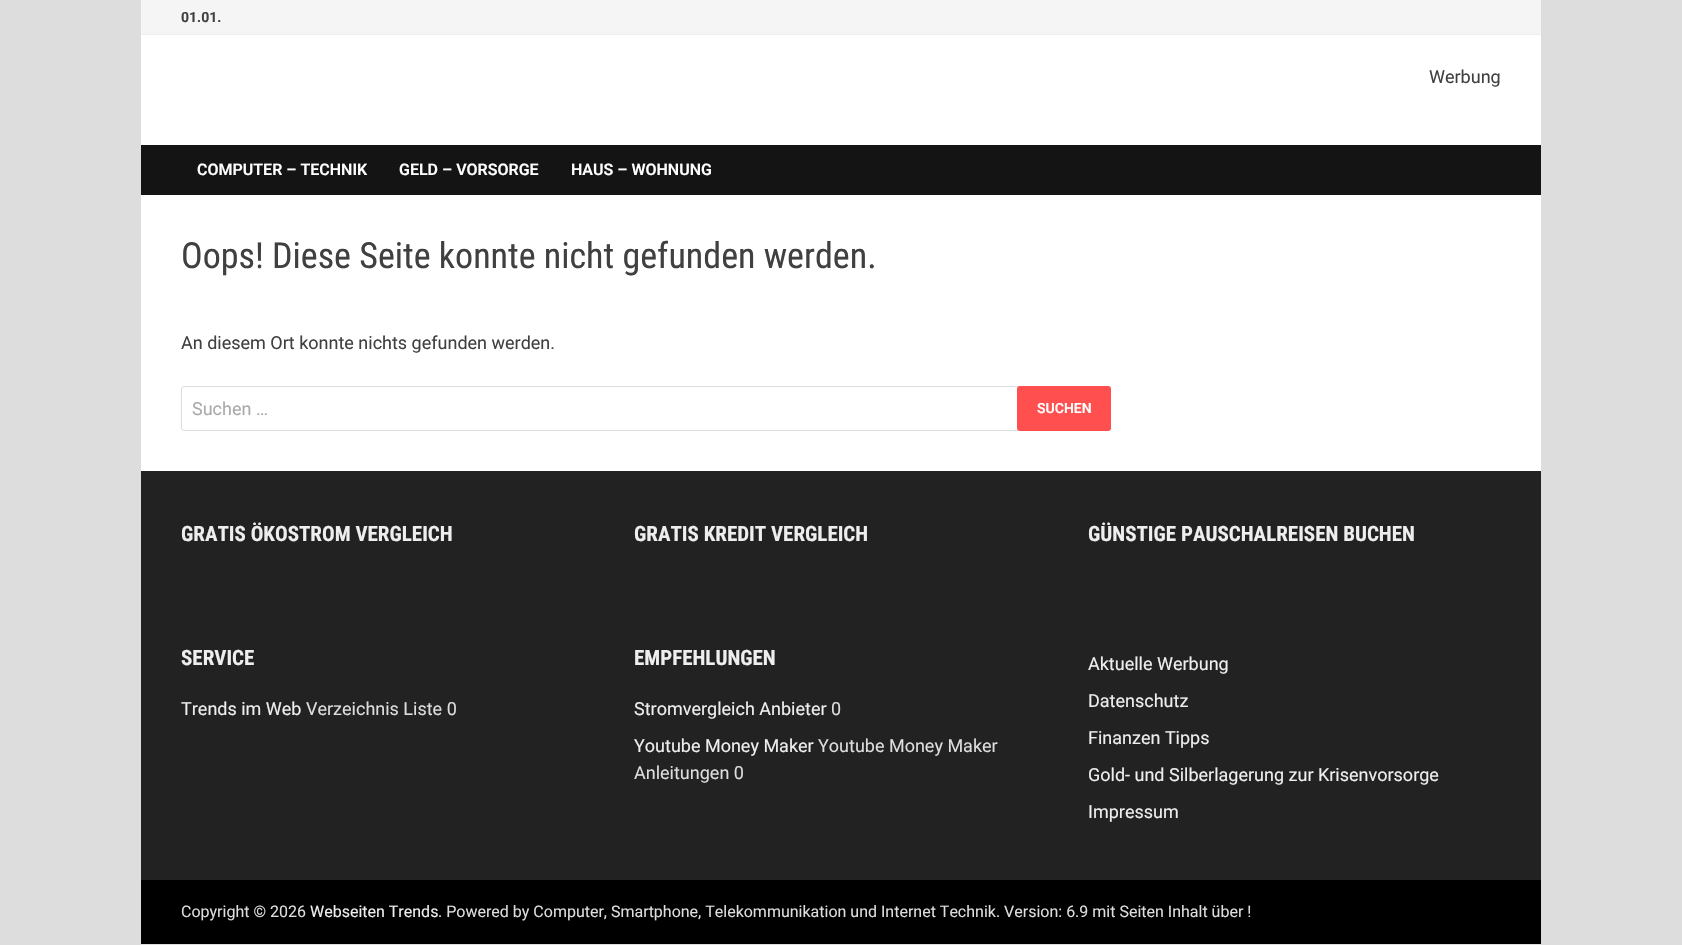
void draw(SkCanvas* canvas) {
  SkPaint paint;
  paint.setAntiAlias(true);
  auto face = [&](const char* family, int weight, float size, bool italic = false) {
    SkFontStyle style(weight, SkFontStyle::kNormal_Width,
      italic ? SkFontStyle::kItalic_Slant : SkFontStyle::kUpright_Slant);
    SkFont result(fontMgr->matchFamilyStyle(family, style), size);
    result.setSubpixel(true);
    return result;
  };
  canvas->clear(0xffdddddd);
  {
    const struct { float x, y, w, h; SkColor color; } items[] = {
      {141, 35, 1400, 436, 0xffffffff},
      {141, 0, 1400, 34, 0xfff5f5f5},
      {141, 34, 1400, 1, 0xffeeeeee},
      {141, 145, 1400, 50, 0xff141414},
    };
    for (auto [x, y, w, h, color] : items) {
      paint.setColor(color);
      canvas->drawRect(SkRect::MakeXYWH(x, y, w, h), paint);
    }
  }
  paint.setStroke(true);
  paint.setStrokeWidth(1);
  paint.setColor(0xffdddddd);
  canvas->drawRoundRect(SkRect::MakeXYWH(181.5f, 386.5f, 929, 44), 2.5f, 2.5f, paint);
  paint.setStroke(false);
  paint.setColor(0xffff4f4f);
  canvas->drawRoundRect(SkRect::MakeXYWH(1017, 386, 94, 45), 3, 3, paint);
  paint.setColor(0xff222222);
  canvas->drawRect(SkRect::MakeXYWH(141, 471, 1400, 409), paint);
  paint.setColor(0xff000000);
  canvas->drawRect(SkRect::MakeXYWH(141, 880, 1400, 64), paint);
  auto f0 = face("Roboto", 700, 14);
  paint.setColor(0xff404040);
  canvas->drawString("01.01.", 181, 22, f0, paint);
  auto f1 = face("Roboto", 400, 18);
  canvas->drawString("Werbung", 1429, 83, f1, paint);
  auto f2 = face("Roboto", 600, 16);
  paint.setColor(0xffffffff);
  {
    const struct { const char* s; float x, y; } items[] = {
      {"COMPUTER – TECHNIK", 197, 175},
      {"GELD – VORSORGE", 399, 175},
      {"HAUS – WOHNUNG", 571, 175},
    };
    for (auto [s, x, y] : items) {
      canvas->drawString(s, x, y, f2, paint);
    }
  }
  auto f3 = face("Roboto Condensed", 400, 36);
  paint.setColor(0xff404040);
  canvas->drawString("Oops! Diese Seite konnte nicht gefunden werden.", 181, 268, f3, paint);
  canvas->drawString("An diesem Ort konnte nichts gefunden werden.", 181, 349, f1, paint);
  paint.setColor(0xffaaaaaa);
  canvas->drawString("Suchen …", 192, 415, f1, paint);
  auto f4 = face("Roboto", 600, 14);
  paint.setColor(0xffffffff);
  canvas->drawString("SUCHEN", 1037, 413, f4, paint);
  auto f5 = face("Roboto Condensed", 700, 21);
  paint.setColor(0xffeeeeee);
  canvas->drawString("GRATIS ÖKOSTROM VERGLEICH", 181, 541, f5, paint);
  canvas->drawString("SERVICE", 181, 665, f5, paint);
  canvas->drawString("Trends im Web", 181, 715, f1, paint);
  paint.setColor(0xffdddddd);
  canvas->drawString("Verzeichnis Liste 0", 306, 715, f1, paint);
  paint.setColor(0xffeeeeee);
  canvas->drawString("GRATIS KREDIT VERGLEICH", 634, 541, f5, paint);
  canvas->drawString("EMPFEHLUNGEN", 634, 665, f5, paint);
  canvas->drawString("Stromvergleich Anbieter", 634, 715, f1, paint);
  paint.setColor(0xffdddddd);
  canvas->drawString("0", 831, 715, f1, paint);
  paint.setColor(0xffeeeeee);
  canvas->drawString("Youtube Money Maker", 634, 752, f1, paint);
  paint.setColor(0xffdddddd);
  canvas->drawString("Youtube Money Maker", 818, 752, f1, paint);
  canvas->drawString("Anleitungen 0", 634, 779, f1, paint);
  paint.setColor(0xffeeeeee);
  canvas->drawString("GÜNSTIGE PAUSCHALREISEN BUCHEN", 1088, 541, f5, paint);
  {
    const struct { const char* s; float x, y; } items[] = {
      {"Aktuelle Werbung", 1088, 670},
      {"Datenschutz", 1088, 707},
      {"Finanzen Tipps", 1088, 744},
      {"Gold- und Silberlagerung zur Krisenvorsorge", 1088, 781},
      {"Impressum", 1088, 818},
    };
    for (auto [s, x, y] : items) {
      canvas->drawString(s, x, y, f1, paint);
    }
  }
  auto f6 = face("Roboto", 400, 16);
  paint.setColor(0xffdddddd);
  canvas->drawString("Copyright © 2026", 181, 917, f6, paint);
  paint.setColor(0xffeeeeee);
  canvas->drawString("Webseiten Trends", 310, 917, f6, paint);
  paint.setColor(0xffdddddd);
  canvas->drawString(". Powered by Computer, Smartphone, Telekommunikation und Internet Technik. Version: 6.9 mit Seiten Inhalt über !", 438, 917, f6, paint);
}
